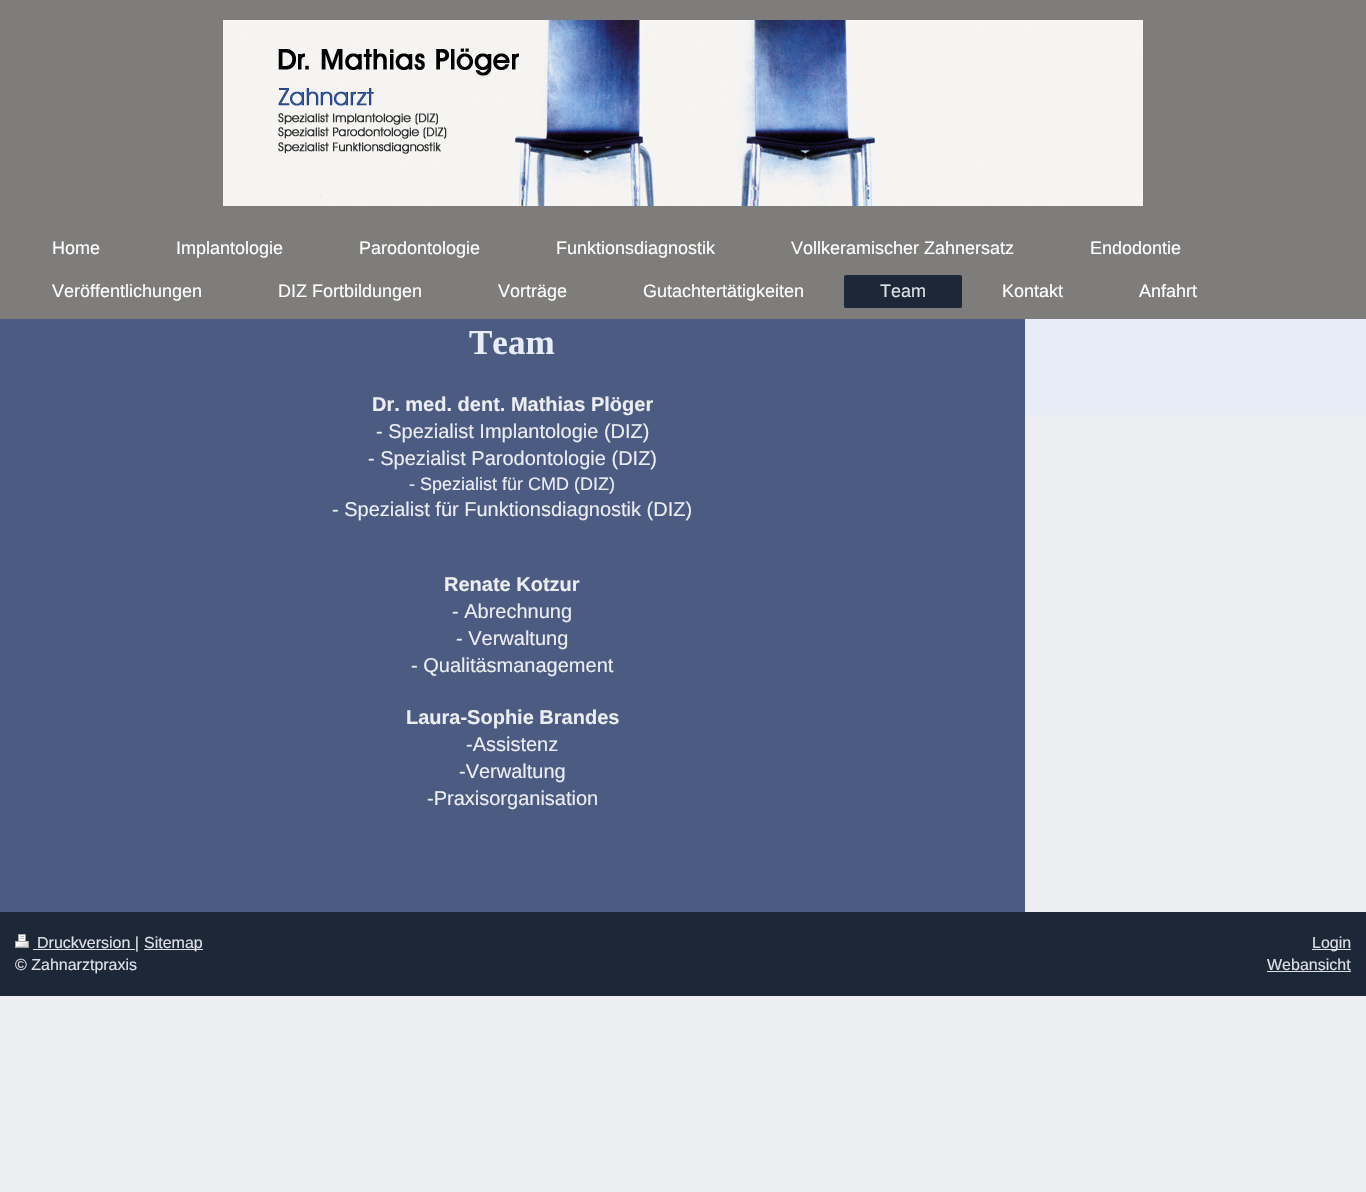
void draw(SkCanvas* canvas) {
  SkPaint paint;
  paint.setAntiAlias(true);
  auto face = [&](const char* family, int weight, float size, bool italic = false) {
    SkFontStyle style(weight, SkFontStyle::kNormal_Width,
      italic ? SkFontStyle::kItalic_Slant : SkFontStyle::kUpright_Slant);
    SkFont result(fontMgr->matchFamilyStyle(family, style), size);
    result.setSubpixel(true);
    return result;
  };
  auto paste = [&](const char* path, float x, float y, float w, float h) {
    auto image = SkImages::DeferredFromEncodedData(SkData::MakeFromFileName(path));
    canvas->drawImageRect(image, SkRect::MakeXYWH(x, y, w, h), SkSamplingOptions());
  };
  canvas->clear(0xffeceef1);
  paint.setColor(0xff7e7d7c);
  canvas->drawRect(SkRect::MakeXYWH(0, 0, 1366, 319), paint);
  paste("img/1.png", 223, 20, 920, 186);
  paint.setColor(0xff1c2738);
  canvas->drawRoundRect(SkRect::MakeXYWH(844, 275, 118, 33), 2, 2, paint);
  {
    const struct { float x, y, w, h; SkColor color; } items[] = {
      {845, 307, 116, 1, 0xff1c2738},
      {0, 319, 1025, 593, 0xff4b5b81},
      {1025, 319, 341, 96, 0xffe6edf7},
      {0, 912, 1366, 84, 0xff1c2738},
    };
    for (auto [x, y, w, h, color] : items) {
      paint.setColor(color);
      canvas->drawRect(SkRect::MakeXYWH(x, y, w, h), paint);
    }
  }
  paste("img/2.png", 15, 934, 14, 14);
  {
    const struct { float x, y, w, h; SkColor color; } items[] = {
      {33, 949, 102, 1, 0xffdee1e6},
      {144, 949, 59, 1, 0xffdee1e6},
      {1312, 949, 39, 1, 0xffdee1e6},
      {1267, 971, 84, 1, 0xffdee1e6},
    };
    for (auto [x, y, w, h, color] : items) {
      paint.setColor(color);
      canvas->drawRect(SkRect::MakeXYWH(x, y, w, h), paint);
    }
  }
  auto f0 = face("Liberation Sans", 400, 18);
  paint.setColor(0xffffffff);
  {
    const struct { const char* s; float x, y; } items[] = {
      {"Home", 52, 254},
      {"Implantologie", 176, 254},
      {"Parodontologie", 359, 254},
      {"Funktionsdiagnostik", 556, 254},
      {"Vollkeramischer Zahnersatz", 791, 254},
      {"Endodontie", 1090, 254},
      {"Veröffentlichungen", 52, 297},
      {"DIZ Fortbildungen", 278, 297},
      {"Vorträge", 498, 297},
      {"Gutachtertätigkeiten", 643, 297},
    };
    for (auto [s, x, y] : items) {
      canvas->drawString(s, x, y, f0, paint);
    }
  }
  paint.setColor(0xffdee1e6);
  canvas->drawString("Team", 880, 297, f0, paint);
  paint.setColor(0xffffffff);
  canvas->drawString("Kontakt", 1002, 297, f0, paint);
  canvas->drawString("Anfahrt", 1139, 297, f0, paint);
  auto f1 = face("Liberation Serif", 700, 35);
  paint.setColor(0xffe6edf7);
  canvas->drawString("Team", 469, 354, f1, paint);
  auto f2 = face("Liberation Sans", 700, 20);
  paint.setColor(0xffebedf1);
  canvas->drawString("Dr. med. dent. Mathias Plöger", 372, 411, f2, paint);
  auto f3 = face("Liberation Sans", 400, 20);
  canvas->drawString("- Spezialist Implantologie (DIZ)", 376, 438, f3, paint);
  canvas->drawString("- Spezialist Parodontologie (DIZ)", 368, 465, f3, paint);
  canvas->drawString("- Spezialist für CMD (DIZ)", 409, 490, f0, paint);
  canvas->drawString("- Spezialist für Funktionsdiagnostik (DIZ)", 332, 516, f3, paint);
  canvas->drawString("Renate Kotzur", 444, 591, f2, paint);
  {
    const struct { const char* s; float x, y; } items[] = {
      {"- Abrechnung", 452, 618},
      {"- Verwaltung", 456, 645},
      {"- Qualitäsmanagement", 411, 672},
    };
    for (auto [s, x, y] : items) {
      canvas->drawString(s, x, y, f3, paint);
    }
  }
  canvas->drawString("Laura-Sophie Brandes", 406, 724, f2, paint);
  {
    const struct { const char* s; float x, y; } items[] = {
      {"-Assistenz", 466, 751},
      {"-Verwaltung", 459, 778},
      {"-Praxisorganisation", 427, 805},
    };
    for (auto [s, x, y] : items) {
      canvas->drawString(s, x, y, f3, paint);
    }
  }
  auto f4 = face("Liberation Sans", 400, 16);
  paint.setColor(0xffdee1e6);
  {
    const struct { const char* s; float x, y; } items[] = {
      {"Druckversion |", 37, 948},
      {"Sitemap", 144, 948},
      {"© Zahnarztpraxis", 15, 970},
      {"Login", 1312, 948},
      {"Webansicht", 1267, 970},
    };
    for (auto [s, x, y] : items) {
      canvas->drawString(s, x, y, f4, paint);
    }
  }
}
